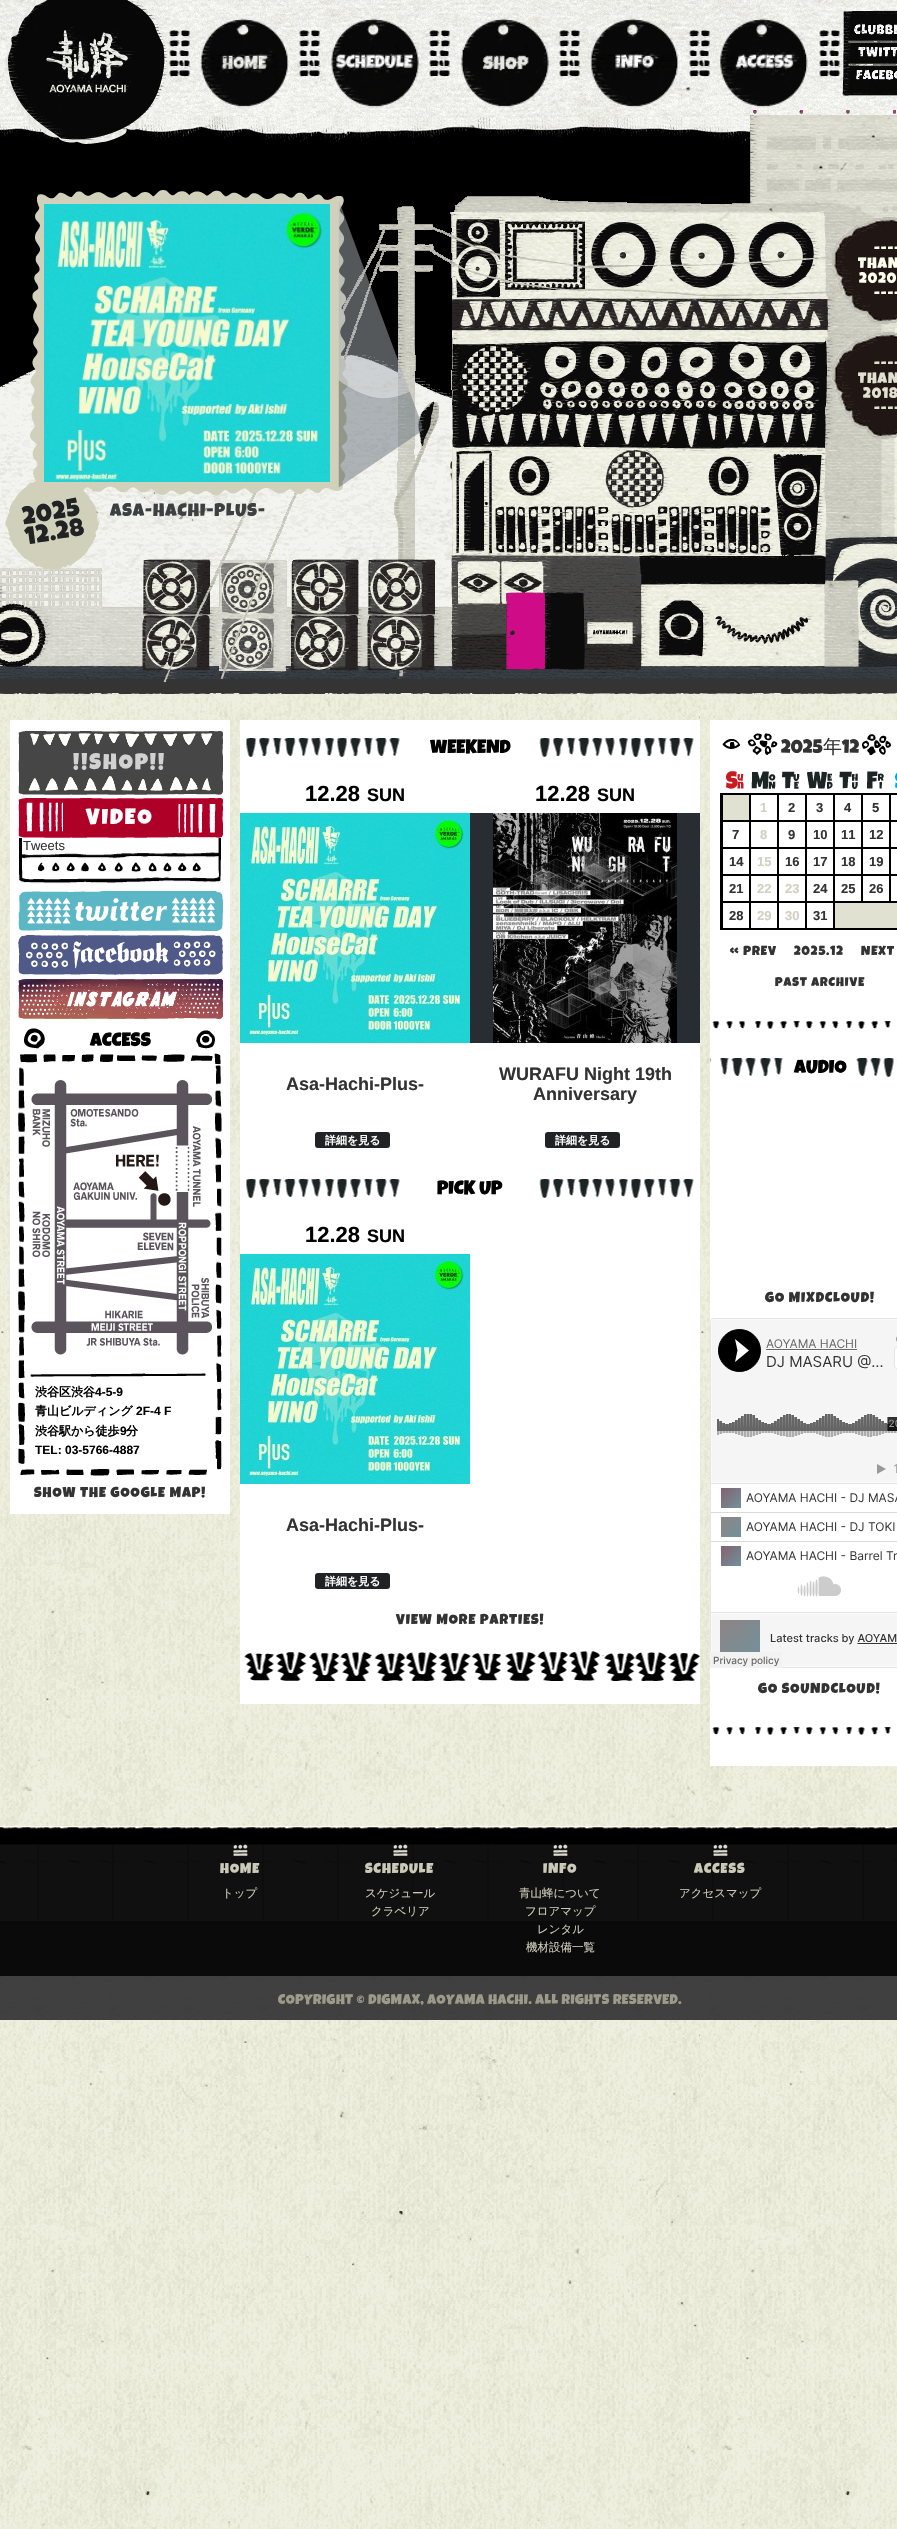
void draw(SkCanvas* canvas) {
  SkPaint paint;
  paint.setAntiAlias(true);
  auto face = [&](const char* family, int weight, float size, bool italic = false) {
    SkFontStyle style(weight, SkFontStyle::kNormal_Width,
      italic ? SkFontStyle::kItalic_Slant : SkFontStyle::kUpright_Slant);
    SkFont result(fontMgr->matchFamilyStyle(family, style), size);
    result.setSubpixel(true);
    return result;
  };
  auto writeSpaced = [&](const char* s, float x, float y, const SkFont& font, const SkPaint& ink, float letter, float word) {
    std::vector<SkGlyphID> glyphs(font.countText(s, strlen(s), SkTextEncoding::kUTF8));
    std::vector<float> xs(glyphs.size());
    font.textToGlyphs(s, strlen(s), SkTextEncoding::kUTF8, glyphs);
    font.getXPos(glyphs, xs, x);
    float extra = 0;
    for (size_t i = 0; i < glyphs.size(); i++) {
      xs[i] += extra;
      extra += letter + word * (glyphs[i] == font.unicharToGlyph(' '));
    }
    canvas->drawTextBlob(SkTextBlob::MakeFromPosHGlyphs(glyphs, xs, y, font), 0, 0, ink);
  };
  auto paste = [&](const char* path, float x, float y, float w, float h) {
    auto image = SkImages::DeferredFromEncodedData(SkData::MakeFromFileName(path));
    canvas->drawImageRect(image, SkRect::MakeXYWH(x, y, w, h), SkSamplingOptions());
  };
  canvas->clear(0xffffffff);
  paste("img/1.png", 0, 695, 897, 1834);
  paste("img/2.png", 0, 0, 897, 607);
  paste("img/48.png", 449, 460, 3, 21);
  paste("img/19.png", 0, 110, 897, 585);
  paste("img/3.png", 4, 0, 164, 144);
  paste("img/4.png", 169, 30, 22, 47);
  paste("img/5.png", 200, 18, 89, 90);
  paste("img/6.png", 299, 30, 22, 47);
  paste("img/7.png", 331, 18, 91, 90);
  paste("img/8.png", 429, 30, 22, 47);
  paste("img/9.png", 461, 18, 91, 90);
  paste("img/10.png", 559, 30, 22, 47);
  paste("img/11.png", 590, 18, 91, 90);
  paste("img/12.png", 689, 30, 22, 47);
  paste("img/13.png", 720, 18, 91, 90);
  paste("img/14.png", 819, 30, 22, 47);
  paste("img/15.png", 842, 10, 55, 87);
  paste("img/16.png", 854, 23, 43, 12);
  paste("img/17.png", 858, 47, 39, 10);
  paste("img/18.png", 856, 70, 41, 10);
  paste("img/20.png", 832, 217, 65, 107);
  paste("img/21.png", 832, 332, 65, 107);
  paste("img/22.png", 5, 190, 417, 380);
  paste("img/23.png", 44, 204, 286, 278);
  paint.setColor(0xffffffff);
  canvas->drawRect(SkRect::MakeXYWH(10, 720, 220, 794), paint);
  paste("img/24.png", 18, 731, 205, 64);
  paste("img/25.png", 18, 798, 205, 40);
  paste("img/26.png", 19, 838, 202, 46);
  paste("img/27.png", 18, 891, 205, 40);
  paste("img/28.png", 18, 935, 205, 40);
  paste("img/29.png", 18, 979, 205, 40);
  paste("img/30.png", 18, 1023, 204, 453);
  paste("img/31.png", 19, 1023, 203, 41);
  paste("img/32.png", 31, 1080, 181, 275);
  paste("img/33.png", 30, 1373, 176, 4);
  canvas->drawRect(SkRect::MakeXYWH(240, 720, 460, 984), paint);
  paste("img/34.png", 246, 738, 448, 19);
  paste("img/35.png", 240, 813, 230, 230);
  paint.setColor(0xff202223);
  canvas->drawRoundRect(SkRect::MakeXYWH(315, 1132, 75, 16), 3, 3, paint);
  paint.setColor(0xff282d33);
  canvas->drawRect(SkRect::MakeXYWH(470, 813, 230, 230), paint);
  paste("img/36.png", 493, 813, 184, 230);
  paint.setColor(0xff202223);
  canvas->drawRoundRect(SkRect::MakeXYWH(545, 1132, 75, 16), 3, 3, paint);
  paste("img/34.png", 246, 1179, 448, 19);
  paste("img/35.png", 240, 1254, 230, 230);
  canvas->drawRoundRect(SkRect::MakeXYWH(315, 1573, 75, 16), 3, 3, paint);
  paste("img/37.png", 244, 1651, 456, 30);
  paint.setColor(0xffffffff);
  canvas->drawRect(SkRect::MakeXYWH(710, 720, 187, 1046), paint);
  paste("img/38.png", 722, 733, 169, 22);
  paste("img/39.png", 726, 771, 171, 18);
  {
    const struct { float x, y, w, h; SkColor color; } items[] = {
      {720, 793, 177, 2, 0xff000000},
      {720, 928, 177, 2, 0xff000000},
      {889, 820, 8, 2, 0xff000000},
      {889, 847, 8, 2, 0xff000000},
      {889, 874, 8, 2, 0xff000000},
      {833, 901, 64, 2, 0xff000000},
      {889, 874, 2, 29, 0xff000000},
      {861, 874, 30, 2, 0xff000000},
      {889, 847, 2, 29, 0xff000000},
      {861, 847, 30, 2, 0xff000000},
      {889, 820, 2, 29, 0xff000000},
      {861, 820, 30, 2, 0xff000000},
      {861, 874, 2, 29, 0xff000000},
      {833, 874, 30, 2, 0xff000000},
      {861, 847, 2, 29, 0xff000000},
      {833, 847, 30, 2, 0xff000000},
      {861, 820, 2, 29, 0xff000000},
      {833, 820, 30, 2, 0xff000000},
      {833, 901, 2, 29, 0xff000000},
      {805, 901, 30, 2, 0xff000000},
      {833, 874, 2, 29, 0xff000000},
      {805, 874, 30, 2, 0xff000000},
      {833, 847, 2, 29, 0xff000000},
      {805, 847, 30, 2, 0xff000000},
      {833, 820, 2, 29, 0xff000000},
      {805, 820, 30, 2, 0xff000000},
      {805, 901, 2, 29, 0xff000000},
      {777, 901, 30, 2, 0xff000000},
      {805, 874, 2, 29, 0xff000000},
      {777, 874, 30, 2, 0xff000000},
      {805, 847, 2, 29, 0xff000000},
      {777, 847, 30, 2, 0xff000000},
      {805, 820, 2, 29, 0xff000000},
      {777, 820, 30, 2, 0xff000000},
      {777, 901, 2, 29, 0xff000000},
      {749, 901, 30, 2, 0xff000000},
      {777, 874, 2, 29, 0xff000000},
      {749, 874, 30, 2, 0xff000000},
      {777, 847, 2, 29, 0xff000000},
      {749, 847, 30, 2, 0xff000000},
      {777, 820, 2, 29, 0xff000000},
      {749, 820, 30, 2, 0xff000000},
      {749, 901, 2, 29, 0xff000000},
      {721, 901, 30, 2, 0xff000000},
      {749, 874, 2, 29, 0xff000000},
      {721, 874, 30, 2, 0xff000000},
      {749, 847, 2, 29, 0xff000000},
      {721, 847, 30, 2, 0xff000000},
      {749, 820, 2, 29, 0xff000000},
      {721, 820, 30, 2, 0xff000000},
      {720, 793, 3, 137, 0xff000000},
      {723, 795, 26, 25, 0xffe1e1d1},
      {749, 793, 2, 29, 0xff000000},
      {777, 793, 2, 29, 0xff000000},
      {805, 793, 2, 29, 0xff000000},
      {833, 793, 2, 29, 0xff000000},
      {861, 793, 2, 29, 0xff000000},
      {889, 793, 2, 29, 0xff000000},
      {835, 903, 62, 25, 0xffe1e1d1},
    };
    for (auto [x, y, w, h, color] : items) {
      paint.setColor(color);
      canvas->drawRect(SkRect::MakeXYWH(x, y, w, h), paint);
    }
  }
  paste("img/40.png", 712, 1021, 179, 8);
  paste("img/41.png", 710, 1058, 187, 19);
  paste("img/42.png", 710, 1318, 187, 350);
  paste("img/40.png", 712, 1727, 179, 8);
  paste("img/43.png", 0, 1826, 897, 150);
  paste("img/44.png", 233, 1844, 15, 12);
  paste("img/44.png", 393, 1844, 15, 12);
  paste("img/45.png", 553, 1844, 15, 12);
  paste("img/46.png", 713, 1844, 15, 12);
  paste("img/47.png", 0, 1976, 897, 44);
  auto f0 = face("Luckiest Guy", 400, 15);
  paint.setColor(0xffffffee);
  {
    const struct { const char* s; float x, y; } items[] = {
      {"----", 874, 253},
      {"THAN", 858, 268},
      {"2020", 859, 283},
      {"----", 874, 298},
    };
    for (auto [s, x, y] : items) {
      writeSpaced(s, x, y, f0, paint, 1, 0);
    }
  }
  paint.setColor(0xffe1e1d1);
  {
    const struct { const char* s; float x, y; } items[] = {
      {"----", 874, 368},
      {"THAN", 858, 383},
      {"2018", 863, 398},
      {"----", 874, 413},
    };
    for (auto [s, x, y] : items) {
      writeSpaced(s, x, y, f0, paint, 1, 0);
    }
  }
  auto f1 = face("Luckiest Guy", 400, 25);
  paint.setColor(0xff202223);
  canvas->save();
  canvas->rotate(-10, 24, 525);
  writeSpaced("2025", 24, 525, f1, paint, 1, 0);
  canvas->restore();
  canvas->save();
  canvas->rotate(-10, 27, 545);
  writeSpaced("12.28", 27, 545, f1, paint, 1, 0);
  canvas->restore();
  auto f2 = face("Luckiest Guy", 400, 18);
  paint.setColor(0xff3d3f40);
  writeSpaced("ASA-HACHI-PLUS-", 110, 516, f2, paint, 1, 0);
  auto f3 = face("Luckiest Guy", 400, 22);
  paint.setColor(0xffd1d1d1);
  writeSpaced("!!SHOP!!", 73, 769, f3, paint, 2, 0);
  paint.setColor(0xffffffff);
  writeSpaced("VIDEO", 86, 824, f3, paint, 2, 0);
  auto f4 = face("Liberation Sans", 400, 13);
  paint.setColor(0xff333333);
  canvas->drawString("Tweets", 23, 850, f4, paint);
  auto f5 = face("Luckiest Guy", 400, 19);
  paint.setColor(0xff000000);
  canvas->drawString("ACCESS", 90, 1046, f5, paint);
  auto f6 = face("WenQuanYi Zen Hei", 700, 12);
  canvas->drawString("渋谷区渋谷", 35, 1396, f6, paint);
  auto f7 = face("Liberation Sans", 700, 12);
  canvas->drawString("4-5-9", 95, 1396, f7, paint);
  canvas->drawString("青山ビルディング", 35, 1415, f6, paint);
  canvas->drawString("2F-4 F", 136, 1415, f7, paint);
  canvas->drawString("渋谷駅から徒歩", 35, 1435, f6, paint);
  canvas->drawString("9", 120, 1435, f7, paint);
  canvas->drawString("分", 126, 1435, f6, paint);
  canvas->drawString("TEL: 03-5766-4887", 35, 1454, f7, paint);
  auto f8 = face("Luckiest Guy", 400, 14.25f);
  paint.setColor(0xff333333);
  writeSpaced("SHOW THE GOOGLE MAP!", 34, 1497, f8, paint, 1, 0);
  paint.setColor(0xff000000);
  canvas->drawString("WEEKEND", 430, 753, f5, paint);
  auto f9 = face("Liberation Sans", 700, 22);
  canvas->drawString("12.28", 305, 801, f9, paint);
  auto f10 = face("Liberation Sans", 700, 18);
  canvas->drawString("SUN", 367, 801, f10, paint);
  paint.setColor(0xff333333);
  canvas->drawString("Asa-Hachi-Plus-", 286, 1090, f10, paint);
  auto f11 = face("WenQuanYi Zen Hei", 700, 11);
  paint.setColor(0xffffffff);
  canvas->drawString("詳細を見る", 325, 1144, f11, paint);
  paint.setColor(0xff000000);
  canvas->drawString("12.28", 535, 801, f9, paint);
  canvas->drawString("SUN", 597, 801, f10, paint);
  paint.setColor(0xff333333);
  canvas->drawString("WURAFU Night 19th", 499, 1080, f10, paint);
  canvas->drawString("Anniversary", 533, 1100, f10, paint);
  paint.setColor(0xffffffff);
  canvas->drawString("詳細を見る", 555, 1144, f11, paint);
  paint.setColor(0xff000000);
  canvas->drawString("PICK UP", 437, 1194, f5, paint);
  canvas->drawString("12.28", 305, 1242, f9, paint);
  canvas->drawString("SUN", 367, 1242, f10, paint);
  paint.setColor(0xff333333);
  canvas->drawString("Asa-Hachi-Plus-", 286, 1531, f10, paint);
  paint.setColor(0xffffffff);
  canvas->drawString("詳細を見る", 325, 1585, f11, paint);
  paint.setColor(0xff333333);
  writeSpaced("VIEW MORE PARTIES!", 396, 1624, f8, paint, 1, 0);
  canvas->drawString("2025", 781, 753, f5, paint);
  auto f12 = face("WenQuanYi Zen Hei", 500, 19);
  canvas->drawString("年", 823, 753, f12, paint);
  canvas->drawString("12", 842, 753, f5, paint);
  auto f13 = face("Liberation Sans", 700, 13);
  paint.setColor(0xffd1d1c1);
  canvas->drawString("1", 760, 812, f13, paint);
  paint.setColor(0xff333333);
  {
    const struct { const char* s; float x, y; } items[] = {
      {"2", 788, 812},
      {"3", 816, 812},
      {"4", 844, 812},
      {"5", 872, 812},
      {"7", 732, 839},
    };
    for (auto [s, x, y] : items) {
      canvas->drawString(s, x, y, f13, paint);
    }
  }
  paint.setColor(0xffd1d1c1);
  canvas->drawString("8", 760, 839, f13, paint);
  paint.setColor(0xff333333);
  {
    const struct { const char* s; float x, y; } items[] = {
      {"9", 788, 839},
      {"10", 813, 839},
      {"11", 841, 839},
      {"12", 869, 839},
      {"14", 729, 866},
    };
    for (auto [s, x, y] : items) {
      canvas->drawString(s, x, y, f13, paint);
    }
  }
  paint.setColor(0xffd1d1c1);
  canvas->drawString("15", 757, 866, f13, paint);
  paint.setColor(0xff333333);
  {
    const struct { const char* s; float x, y; } items[] = {
      {"16", 785, 866},
      {"17", 813, 866},
      {"18", 841, 866},
      {"19", 869, 866},
      {"21", 729, 893},
    };
    for (auto [s, x, y] : items) {
      canvas->drawString(s, x, y, f13, paint);
    }
  }
  paint.setColor(0xffd1d1c1);
  canvas->drawString("22", 757, 893, f13, paint);
  canvas->drawString("23", 785, 893, f13, paint);
  paint.setColor(0xff333333);
  {
    const struct { const char* s; float x, y; } items[] = {
      {"24", 813, 893},
      {"25", 841, 893},
      {"26", 869, 893},
      {"28", 729, 920},
    };
    for (auto [s, x, y] : items) {
      canvas->drawString(s, x, y, f13, paint);
    }
  }
  paint.setColor(0xffd1d1c1);
  canvas->drawString("29", 757, 920, f13, paint);
  canvas->drawString("30", 785, 920, f13, paint);
  paint.setColor(0xff333333);
  canvas->drawString("31", 813, 920, f13, paint);
  auto f14 = face("Luckiest Guy", 400, 13);
  {
    const struct { const char* s; float x, y; } items[] = {
      {"« PREV", 730, 955},
      {"2025.12", 794, 955},
      {"NEXT", 861, 955},
    };
    for (auto [s, x, y] : items) {
      writeSpaced(s, x, y, f14, paint, 1, 0);
    }
  }
  auto f15 = face("Luckiest Guy", 400, 12.5f);
  writeSpaced("PAST ARCHIVE", 775, 986, f15, paint, 1, 0);
  paint.setColor(0xff000000);
  canvas->drawString("AUDIO", 794, 1073, f5, paint);
  paint.setColor(0xff333333);
  writeSpaced("GO MIXDCLOUD!", 765, 1302, f8, paint, 1, 0);
  writeSpaced("GO SOUNDCLOUD!", 758, 1693, f8, paint, 1, 0);
  paint.setColor(0xffcbcab9);
  writeSpaced("HOME", 220, 1873, f8, paint, 1, 0);
  auto f16 = face("WenQuanYi Zen Hei", 500, 11.5f);
  canvas->drawString("トップ", 222, 1897, f16, paint);
  writeSpaced("SCHEDULE", 365, 1873, f8, paint, 1, 0);
  canvas->drawString("スケジュール", 365, 1897, f16, paint);
  canvas->drawString("クラベリア", 371, 1915, f16, paint);
  writeSpaced("INFO", 543, 1873, f8, paint, 1, 0);
  {
    const struct { const char* s; float x, y; } items[] = {
      {"青山蜂について", 519, 1897},
      {"フロアマップ", 525, 1915},
      {"レンタル", 537, 1933},
      {"機材設備一覧", 526, 1951},
    };
    for (auto [s, x, y] : items) {
      canvas->drawString(s, x, y, f16, paint);
    }
  }
  writeSpaced("ACCESS", 694, 1873, f8, paint, 1, 0);
  canvas->drawString("アクセスマップ", 679, 1897, f16, paint);
  auto f17 = face("Luckiest Guy", 400, 14);
  paint.setColor(0xff9c9a89);
  writeSpaced("COPYRIGHT © DIGMAX, AOYAMA HACHI. ALL RIGHTS RESERVED.", 278, 2004, f17, paint, 0.5f, 0);
}
